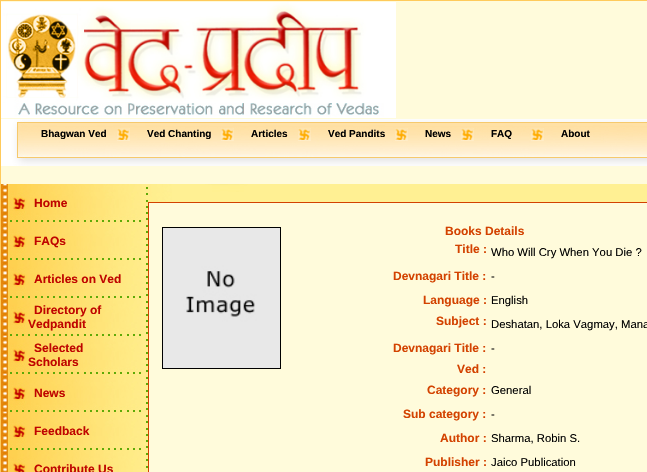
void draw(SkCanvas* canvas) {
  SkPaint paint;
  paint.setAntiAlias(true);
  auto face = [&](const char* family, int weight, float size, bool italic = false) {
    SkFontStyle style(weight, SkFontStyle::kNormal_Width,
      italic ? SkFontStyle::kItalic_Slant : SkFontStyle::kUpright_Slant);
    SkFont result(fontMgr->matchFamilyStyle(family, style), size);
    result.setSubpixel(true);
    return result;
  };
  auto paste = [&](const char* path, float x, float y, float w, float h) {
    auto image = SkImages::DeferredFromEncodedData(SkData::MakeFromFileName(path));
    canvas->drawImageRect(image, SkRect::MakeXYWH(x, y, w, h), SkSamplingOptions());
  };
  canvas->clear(0xfffffbdb);
  paint.setStroke(true);
  paint.setStrokeWidth(1);
  paint.setColor(0xffffca5b);
  canvas->drawRect(SkRect::MakeXYWH(0.5f, 0.5f, 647, 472), paint);
  paste("img/1.png", 1, 2, 395, 116);
  paste("img/2.png", 1, 119, 646, 47);
  paste("img/3.png", 117, 128, 13, 13);
  paste("img/3.png", 221, 128, 13, 13);
  paste("img/3.png", 298, 128, 13, 13);
  paste("img/3.png", 395, 128, 13, 13);
  paste("img/3.png", 461, 128, 13, 13);
  paste("img/3.png", 531, 128, 13, 13);
  paste("img/4.png", 1, 184, 1, 288);
  paste("img/5.png", 2, 184, 146, 38);
  paste("img/5.png", 2, 222, 146, 38);
  paste("img/5.png", 2, 260, 146, 38);
  paste("img/5.png", 2, 298, 146, 38);
  paste("img/5.png", 2, 336, 146, 38);
  paste("img/5.png", 2, 374, 146, 38);
  paste("img/5.png", 2, 412, 146, 38);
  paste("img/6.png", 2, 450, 146, 22);
  paste("img/7.png", 148, 184, 499, 18);
  paint.setColor(0xffd34200);
  canvas->drawRect(SkRect::MakeXYWH(148.5f, 202.5f, 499, 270), paint);
  paint.setColor(0xff000000);
  canvas->drawRect(SkRect::MakeXYWH(162.5f, 227.5f, 118, 141), paint);
  paste("img/8.png", 163, 228, 117, 140);
  auto f0 = face("Liberation Sans", 700, 10);
  paint.setStroke(false);
  {
    const struct { const char* s; float x, y; } items[] = {
      {"Bhagwan Ved", 41, 137},
      {"Ved Chanting", 147, 137},
      {"Articles", 251, 137},
      {"Ved Pandits", 328, 137},
      {"News", 425, 137},
      {"FAQ", 491, 137},
      {"About", 561, 137},
    };
    for (auto [s, x, y] : items) {
      canvas->drawString(s, x, y, f0, paint);
    }
  }
  auto f1 = face("Liberation Sans", 700, 12);
  paint.setColor(0xffbf0500);
  {
    const struct { const char* s; float x, y; } items[] = {
      {"Home", 34, 207},
      {"FAQs", 34, 245},
      {"Articles on Ved", 34, 283},
      {"Directory of", 34, 314},
      {"Vedpandit", 28, 328},
      {"Selected", 34, 352},
      {"Scholars", 28, 366},
      {"News", 34, 397},
      {"Feedback", 34, 435},
      {"Contribute Us", 34, 473},
    };
    for (auto [s, x, y] : items) {
      canvas->drawString(s, x, y, f1, paint);
    }
  }
  paint.setColor(0xffd34200);
  canvas->drawString("Books Details", 445, 235, f1, paint);
  canvas->drawString("Title :", 455, 253, f1, paint);
  auto f2 = face("Liberation Sans", 400, 11.3f);
  paint.setColor(0xff000000);
  canvas->drawString("Who Will Cry When You Die ?", 491, 256, f2, paint);
  paint.setColor(0xffd34200);
  canvas->drawString("Devnagari Title :", 393, 280, f1, paint);
  paint.setColor(0xff000000);
  canvas->drawString("-", 491, 280, f2, paint);
  paint.setColor(0xffd34200);
  canvas->drawString("Language :", 423, 304, f1, paint);
  paint.setColor(0xff000000);
  canvas->drawString("English", 491, 304, f2, paint);
  paint.setColor(0xffd34200);
  canvas->drawString("Subject :", 436, 325, f1, paint);
  paint.setColor(0xff000000);
  canvas->drawString("Deshatan, Loka Vagmay, Mana", 491, 328, f2, paint);
  paint.setColor(0xffd34200);
  canvas->drawString("Devnagari Title :", 393, 352, f1, paint);
  paint.setColor(0xff000000);
  canvas->drawString("-", 491, 352, f2, paint);
  paint.setColor(0xffd34200);
  canvas->drawString("Ved :", 457, 373, f1, paint);
  canvas->drawString("Category :", 427, 394, f1, paint);
  paint.setColor(0xff000000);
  canvas->drawString("General", 491, 394, f2, paint);
  paint.setColor(0xffd34200);
  canvas->drawString("Sub category :", 403, 418, f1, paint);
  paint.setColor(0xff000000);
  canvas->drawString("-", 491, 418, f2, paint);
  paint.setColor(0xffd34200);
  canvas->drawString("Author :", 440, 442, f1, paint);
  paint.setColor(0xff000000);
  canvas->drawString("Sharma, Robin S.", 491, 442, f2, paint);
  paint.setColor(0xffd34200);
  canvas->drawString("Publisher :", 425, 466, f1, paint);
  paint.setColor(0xff000000);
  canvas->drawString("Jaico Publication", 491, 466, f2, paint);
}
